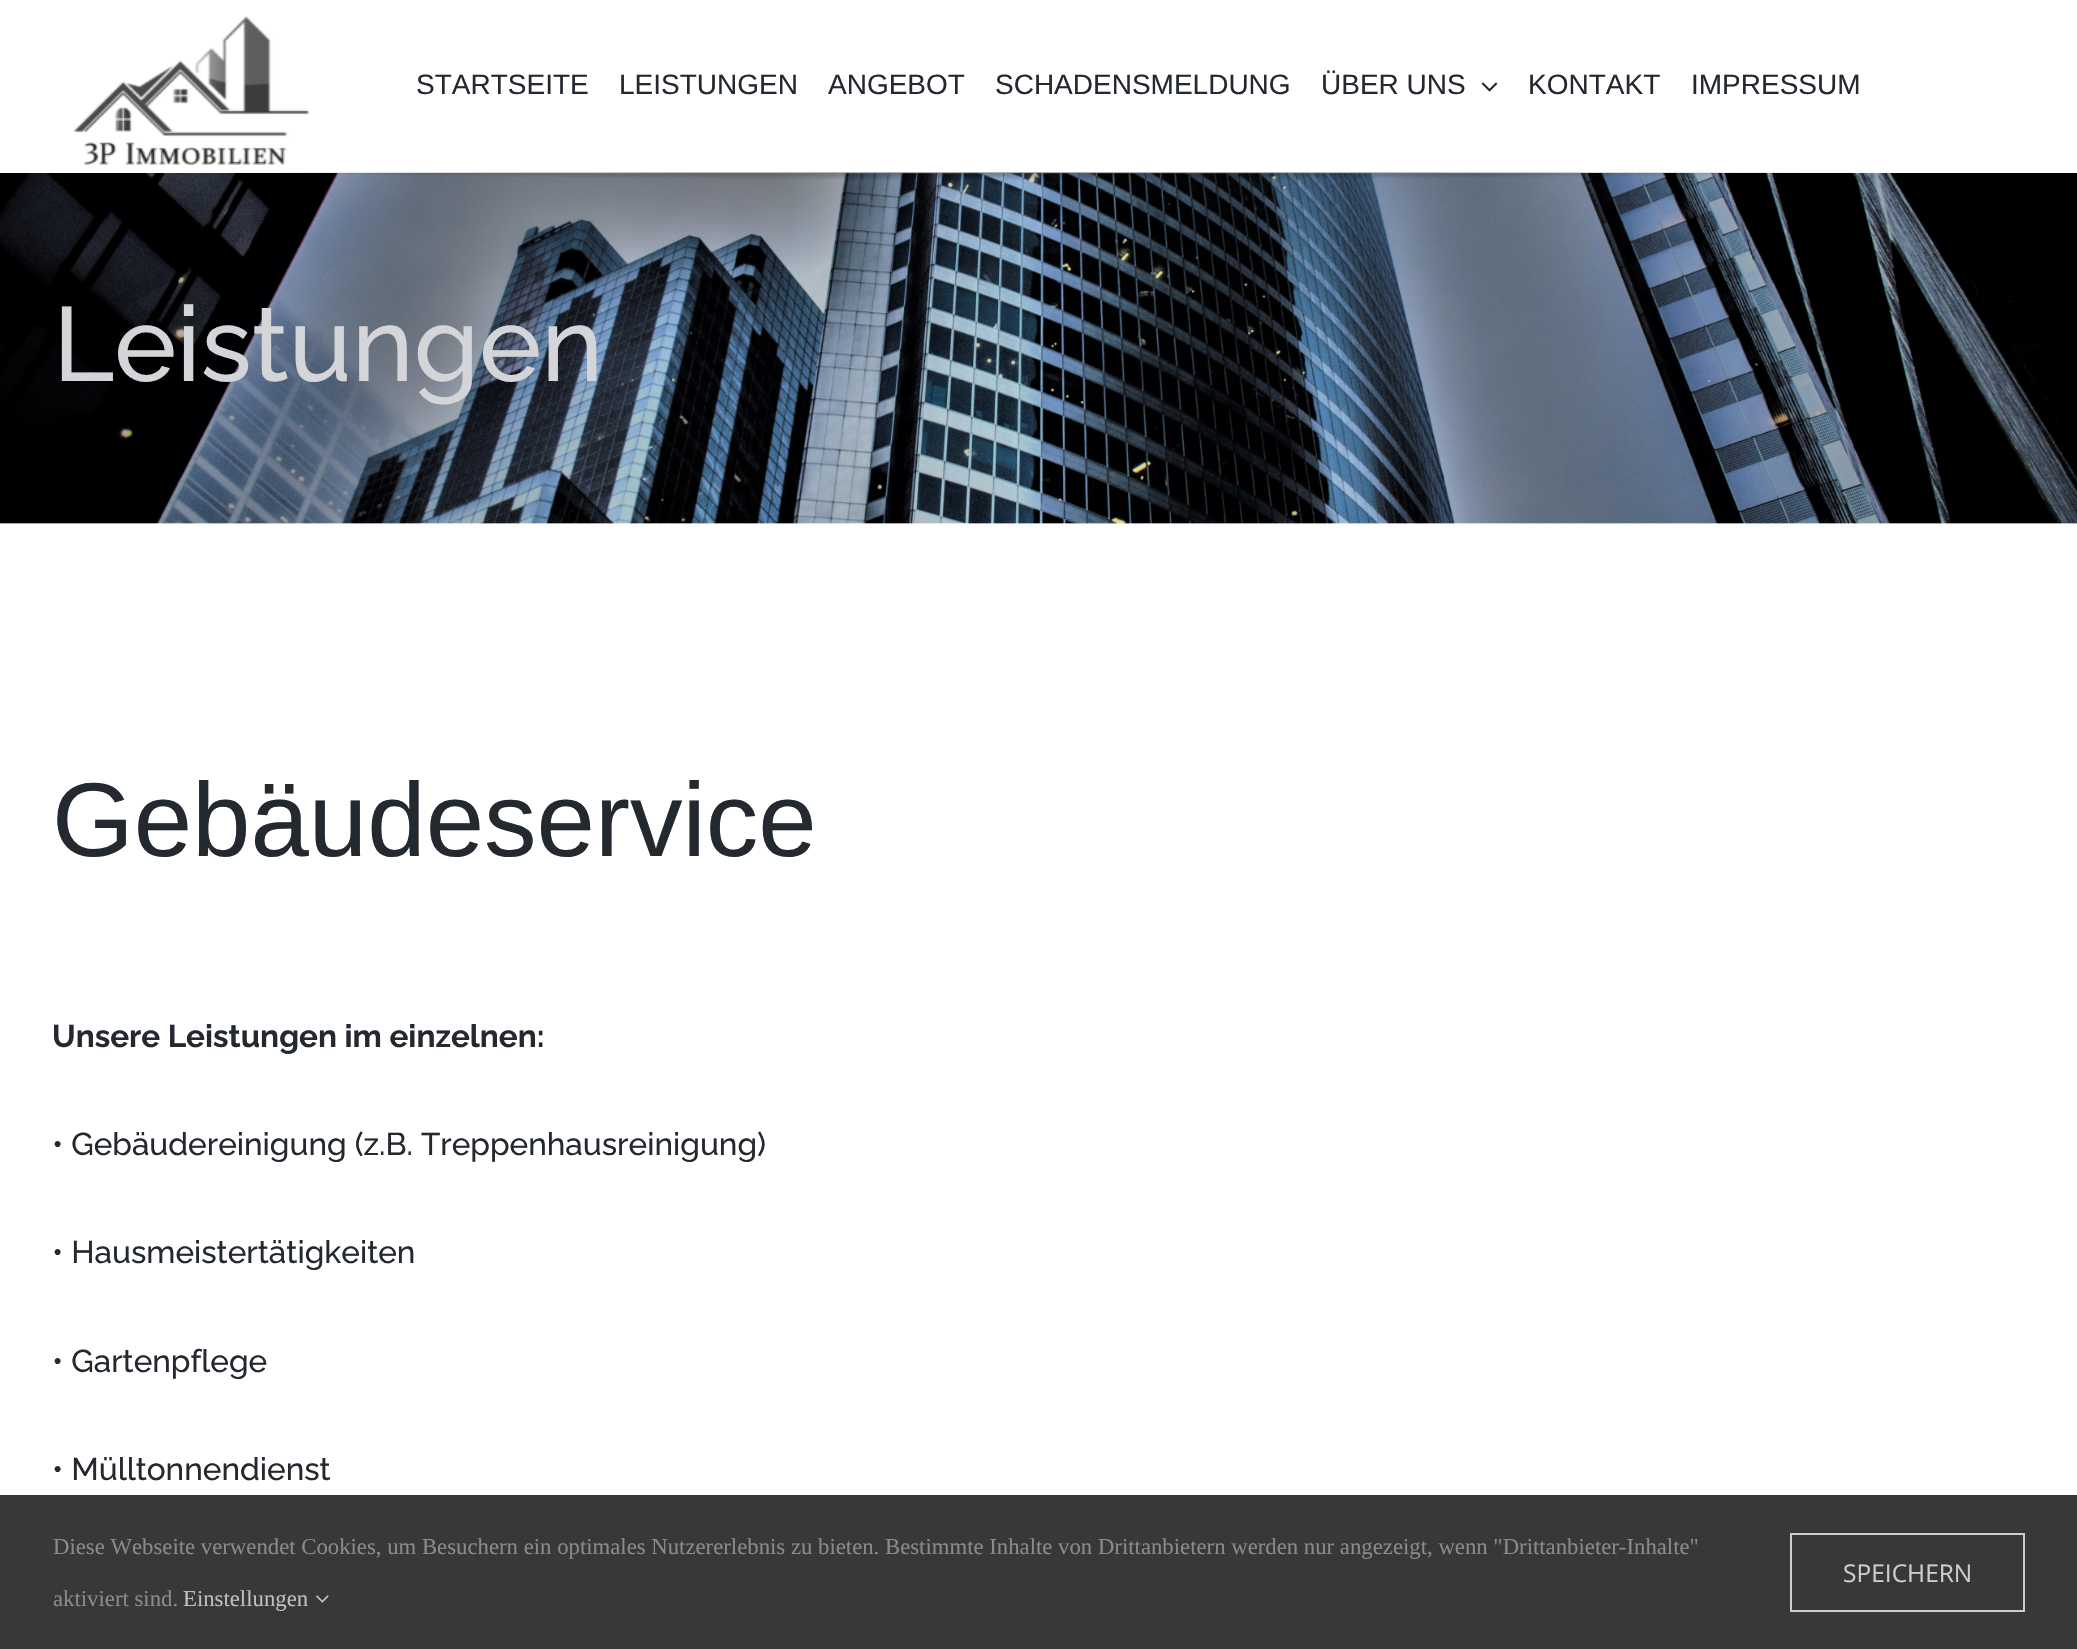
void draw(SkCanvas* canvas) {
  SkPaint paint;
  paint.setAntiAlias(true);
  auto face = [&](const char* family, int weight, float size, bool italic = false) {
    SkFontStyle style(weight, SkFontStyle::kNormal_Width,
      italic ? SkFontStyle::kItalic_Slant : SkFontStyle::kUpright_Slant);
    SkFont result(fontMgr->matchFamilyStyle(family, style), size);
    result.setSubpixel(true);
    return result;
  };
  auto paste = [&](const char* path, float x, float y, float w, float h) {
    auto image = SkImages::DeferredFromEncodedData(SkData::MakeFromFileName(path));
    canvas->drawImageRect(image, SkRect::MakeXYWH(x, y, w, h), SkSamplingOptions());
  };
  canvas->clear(0xffffffff);
  paste("img/1.png", 73, 16, 237, 149);
  paste("img/2.png", 1481, 82, 17, 10);
  paste("img/3.png", 0, 173, 2077, 351);
  {
    const SkColor colors[] = {0xffe0dede, 0x00e0dede};
    const float stops[] = {0, 0.8f};
    SkMatrix m = SkMatrix::Translate(1039, 171).preScale(1395, 3.7f);
    paint.setShader(SkGradientShader::MakeRadial({0, 0}, 1, colors, stops, 2, SkTileMode::kClamp, 0, &m));
    paint.setAlpha(255);
  }
  canvas->drawRect(SkRect::MakeXYWH(162, 172, 1754, 2), paint);
  {
    const SkColor colors[] = {0x80000000, 0x00000000};
    const float stops[] = {0, 0.65f};
    SkMatrix m = SkMatrix::Translate(1039, 166).preScale(1395, 22);
    paint.setShader(SkGradientShader::MakeRadial({0, 0}, 1, colors, stops, 2, SkTileMode::kClamp, 0, &m));
    paint.setAlpha(255);
  }
  canvas->drawRect(SkRect::MakeXYWH(276, 172, 1526, 8), paint);
  paint.setShader(nullptr);
  paint.setColor(0xff363839);
  canvas->drawRect(SkRect::MakeXYWH(0, 1495, 2077, 154), paint);
  paste("img/4.png", 316, 1595, 13, 8);
  paint.setStroke(true);
  paint.setStrokeWidth(2);
  paint.setColor(0xffcdcdce);
  canvas->drawRect(SkRect::MakeXYWH(1791, 1534, 233, 77), paint);
  auto f0 = face("Liberation Sans", 400, 28);
  paint.setStroke(false);
  paint.setColor(0xff242930);
  {
    const struct { const char* s; float x, y; } items[] = {
      {"STARTSEITE", 416, 94},
      {"LEISTUNGEN", 619, 94},
      {"ANGEBOT", 828, 94},
      {"SCHADENSMELDUNG", 995, 94},
      {"ÜBER UNS", 1321, 94},
      {"KONTAKT", 1528, 94},
      {"IMPRESSUM", 1691, 94},
    };
    for (auto [s, x, y] : items) {
      canvas->drawString(s, x, y, f0, paint);
    }
  }
  auto f1 = face("Raleway", 500, 105);
  paint.setColor(0xffd3d5d8);
  canvas->drawString("Leistungen", 53, 381, f1, paint);
  auto f2 = face("Liberation Sans", 400, 105);
  paint.setColor(0xff242930);
  canvas->drawString("Gebäudeservice", 52, 856, f2, paint);
  auto f3 = face("Raleway", 700, 31.5f);
  canvas->drawString("Unsere Leistungen im einzelnen:", 52, 1047, f3, paint);
  auto f4 = face("Raleway", 500, 31.5f);
  {
    const struct { const char* s; float x, y; } items[] = {
      {"• Gebäudereinigung (z.B. Treppenhausreinigung)", 52, 1155},
      {"• Hausmeistertätigkeiten", 52, 1263},
      {"• Gartenpflege", 52, 1372},
      {"• Mülltonnendienst", 52, 1480},
    };
    for (auto [s, x, y] : items) {
      canvas->drawString(s, x, y, f4, paint);
    }
  }
  auto f5 = face("Liberation Serif", 400, 22.75f);
  paint.setColor(0xff8c8989);
  canvas->drawString("Diese Webseite verwendet Cookies, um Besuchern ein optimales Nutzererlebnis zu bieten. Bestimmte Inhalte von Drittanbietern werden nur angezeigt, wenn \"Drittanbieter-Inhalte\"", 53, 1554, f5, paint);
  canvas->drawString("aktiviert sind.", 53, 1606, f5, paint);
  paint.setColor(0xffbfbfbf);
  canvas->drawString("Einstellungen", 183, 1606, f5, paint);
  auto f6 = face("Open Sans", 400, 24.5f);
  paint.setColor(0xffcdcdce);
  canvas->drawString("SPEICHERN", 1843, 1582, f6, paint);
}
